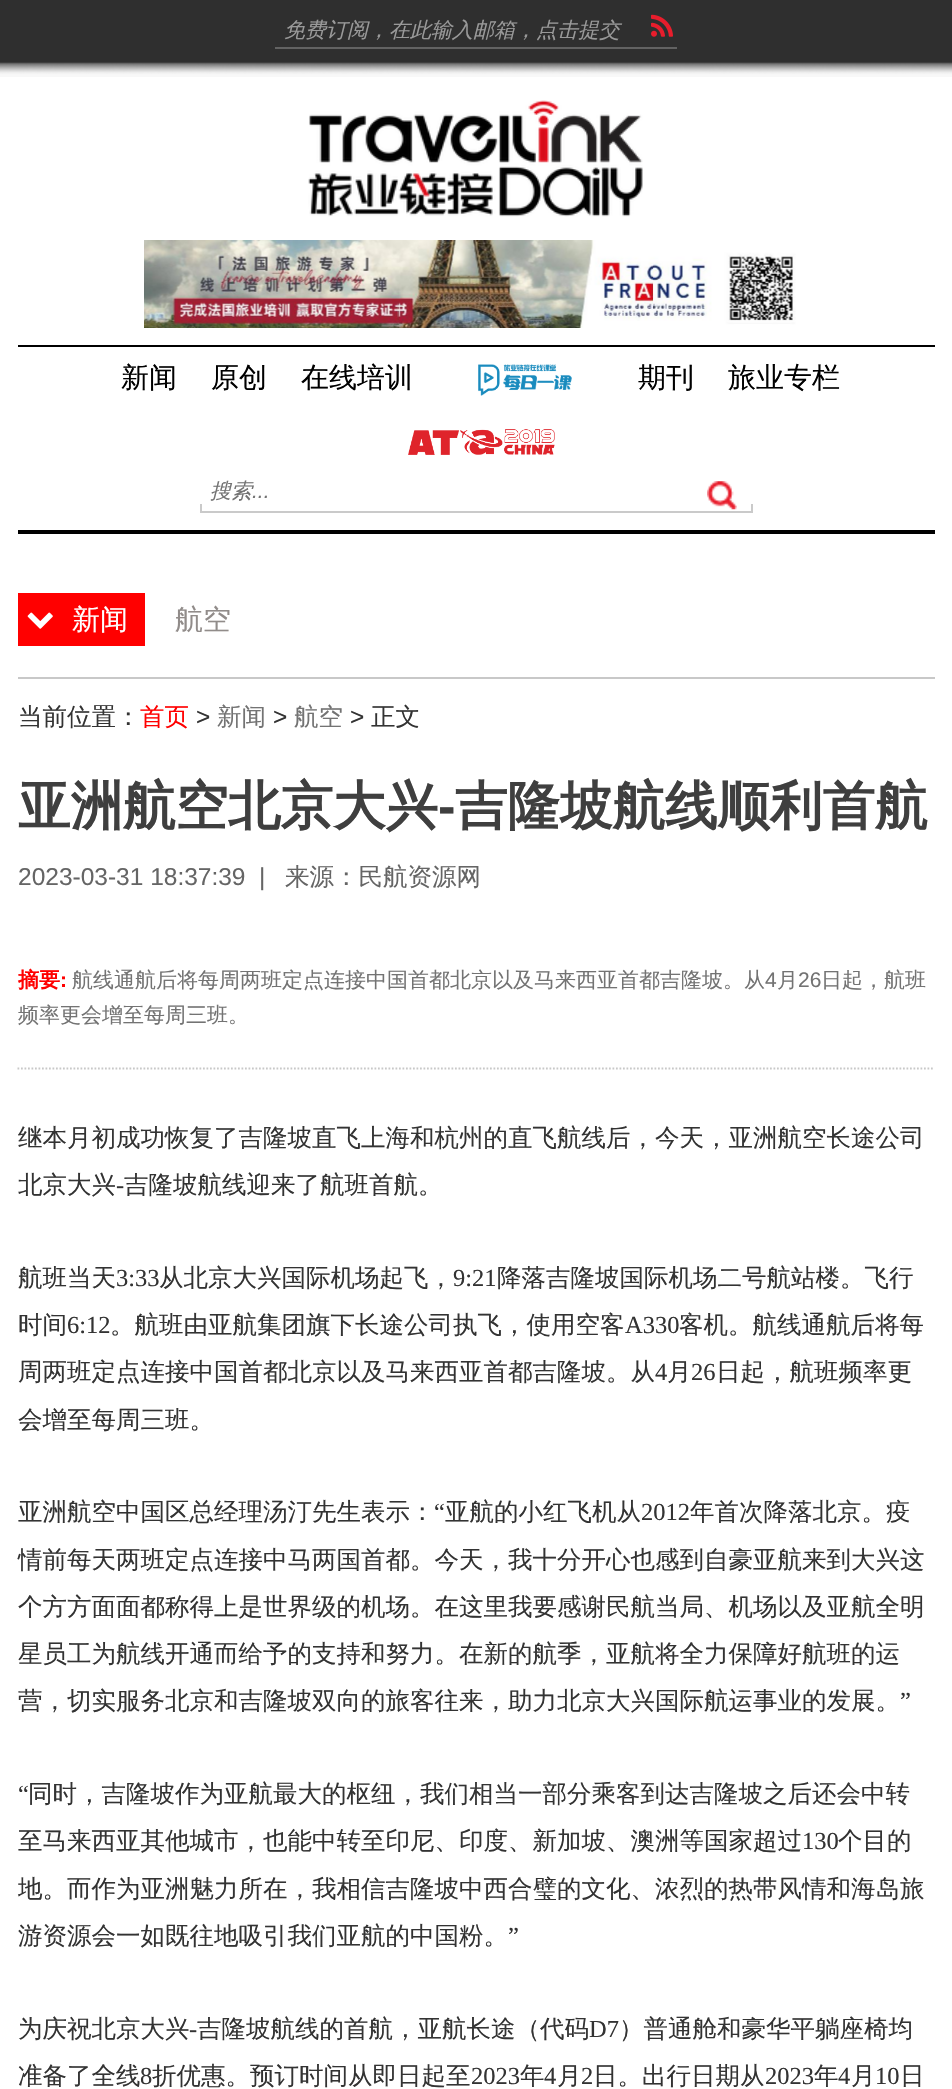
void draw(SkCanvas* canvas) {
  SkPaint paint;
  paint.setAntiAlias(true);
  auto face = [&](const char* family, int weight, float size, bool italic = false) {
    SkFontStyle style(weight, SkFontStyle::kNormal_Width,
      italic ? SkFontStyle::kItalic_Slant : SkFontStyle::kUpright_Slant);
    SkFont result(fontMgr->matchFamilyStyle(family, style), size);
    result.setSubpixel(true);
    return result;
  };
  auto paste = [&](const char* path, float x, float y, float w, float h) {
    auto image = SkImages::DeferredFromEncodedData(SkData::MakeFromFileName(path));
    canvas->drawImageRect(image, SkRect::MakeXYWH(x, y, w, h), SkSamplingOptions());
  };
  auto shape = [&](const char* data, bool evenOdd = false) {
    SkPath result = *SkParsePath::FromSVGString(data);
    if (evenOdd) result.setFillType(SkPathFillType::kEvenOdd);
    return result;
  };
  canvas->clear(0xffffffff);
  paste("img/1.png", 0, 0, 952, 77);
  paint.setColor(0xff626262);
  canvas->drawRect(SkRect::MakeXYWH(275, 47, 402, 2), paint);
  paste("img/2.png", 651, 14, 22, 23);
  paste("img/3.png", 308, 100, 335, 117);
  paste("img/4.png", 144, 240, 652, 88);
  paint.setColor(0xff000000);
  canvas->drawRect(SkRect::MakeXYWH(18, 345, 917, 2), paint);
  canvas->drawRect(SkRect::MakeXYWH(18, 530, 917, 4), paint);
  paste("img/5.png", 478, 364, 94, 32);
  paste("img/6.png", 408, 429, 147, 26);
  paint.setColor(0xffcacaca);
  canvas->drawRect(SkRect::MakeXYWH(201, 511, 550, 2), paint);
  canvas->drawRect(SkRect::MakeXYWH(200, 504, 2, 9), paint);
  paste("img/7.png", 707, 481, 30, 29);
  canvas->drawRect(SkRect::MakeXYWH(751, 504, 2, 9), paint);
  paint.setColor(0xffff0000);
  canvas->drawRect(SkRect::MakeXYWH(18, 593, 127, 53), paint);
  paste("img/8.png", 27, 612, 26, 17);
  paint.setColor(0xffc8c8c8);
  canvas->drawRect(SkRect::MakeXYWH(18, 677, 917, 2), paint);
  paint.setStroke(true);
  paint.setStrokeWidth(1.8f);
  paint.setPathEffect(SkDashPathEffect::Make({{1.75f, 1.75f}}, 0));
  canvas->drawPath(shape("M17.5 1068.5H934.5"), paint);
  paint.setPathEffect(nullptr);
  auto f0 = face("WenQuanYi Zen Hei", 500, 21, true);
  paint.setStroke(false);
  paint.setColor(0xff999999);
  canvas->drawString("免费订阅，在此输入邮箱，点击提交", 284, 37, f0, paint);
  auto f1 = face("WenQuanYi Zen Hei", 500, 28);
  paint.setColor(0xff000000);
  {
    const struct { const char* s; float x, y; } items[] = {
      {"新闻", 121, 387},
      {"原创", 211, 387},
      {"在线培训", 301, 387},
      {"期刊", 638, 387},
      {"旅业专栏", 728, 387},
    };
    for (auto [s, x, y] : items) {
      canvas->drawString(s, x, y, f1, paint);
    }
  }
  paint.setColor(0xff737373);
  canvas->drawString("搜索", 210, 498, f0, paint);
  auto f2 = face("Liberation Sans", 400, 21, true);
  canvas->drawString("...", 252, 498, f2, paint);
  paint.setColor(0xffffffff);
  canvas->drawString("新闻", 72, 629, f1, paint);
  paint.setColor(0xff918c8a);
  canvas->drawString("航空", 175, 629, f1, paint);
  auto f3 = face("WenQuanYi Zen Hei", 500, 24.5f);
  paint.setColor(0xff333333);
  canvas->drawString("当前位置：", 18, 725, f3, paint);
  paint.setColor(0xffff0000);
  canvas->drawString("首页", 140, 725, f3, paint);
  auto f4 = face("Liberation Sans", 400, 24.5f);
  paint.setColor(0xff333333);
  canvas->drawString(">", 196, 725, f4, paint);
  paint.setColor(0xff737373);
  canvas->drawString("新闻", 217, 725, f3, paint);
  paint.setColor(0xff333333);
  canvas->drawString(">", 273, 725, f4, paint);
  paint.setColor(0xff737373);
  canvas->drawString("航空", 294, 725, f3, paint);
  paint.setColor(0xff333333);
  canvas->drawString(">", 350, 725, f4, paint);
  canvas->drawString("正文", 371, 725, f3, paint);
  auto f5 = face("WenQuanYi Zen Hei", 700, 52.5f);
  paint.setColor(0xff3f3f3f);
  canvas->drawString("亚洲航空北京大兴", 18, 824, f5, paint);
  auto f6 = face("Liberation Sans", 700, 52.5f);
  canvas->drawString("-", 438, 824, f6, paint);
  canvas->drawString("吉隆坡航线顺利首航", 455, 824, f5, paint);
  paint.setColor(0xff656565);
  canvas->drawString("2023-03-31 18:37:39  |", 18, 885, f4, paint);
  canvas->drawString("来源：民航资源网", 285, 885, f3, paint);
  auto f7 = face("WenQuanYi Zen Hei", 700, 21);
  paint.setColor(0xffff0000);
  canvas->drawString("摘要", 18, 987, f7, paint);
  auto f8 = face("Liberation Sans", 700, 21);
  canvas->drawString(":", 60, 987, f8, paint);
  auto f9 = face("WenQuanYi Zen Hei", 500, 21);
  paint.setColor(0xff737373);
  canvas->drawString("航线通航后将每周两班定点连接中国首都北京以及马来西亚首都吉隆坡。从", 72, 987, f9, paint);
  auto f10 = face("Liberation Sans", 400, 21);
  canvas->drawString("4", 765, 987, f10, paint);
  canvas->drawString("月", 777, 987, f9, paint);
  canvas->drawString("26", 798, 987, f10, paint);
  canvas->drawString("日起，航班", 821, 987, f9, paint);
  canvas->drawString("频率更会增至每周三班。", 18, 1022, f9, paint);
  paint.setColor(0xff333333);
  canvas->drawString("继本月初成功恢复了吉隆坡直飞上海和杭州的直飞航线后，今天，亚洲航空长途公司", 18, 1146, f3, paint);
  canvas->drawString("北京大兴", 18, 1193, f3, paint);
  auto f11 = face("Liberation Serif", 400, 24.5f);
  canvas->drawString("-", 116, 1193, f11, paint);
  canvas->drawString("吉隆坡航线迎来了航班首航。", 124, 1193, f3, paint);
  canvas->drawString("航班当天", 18, 1286, f3, paint);
  canvas->drawString("3:33", 116, 1286, f11, paint);
  canvas->drawString("从北京大兴国际机场起飞，", 159, 1286, f3, paint);
  canvas->drawString("9:21", 453, 1286, f11, paint);
  canvas->drawString("降落吉隆坡国际机场二号航站楼。飞行", 497, 1286, f3, paint);
  canvas->drawString("时间", 18, 1333, f3, paint);
  canvas->drawString("6:12", 67, 1333, f11, paint);
  canvas->drawString("。航班由亚航集团旗下长途公司执飞，使用空客", 110, 1333, f3, paint);
  canvas->drawString("A330", 625, 1333, f11, paint);
  canvas->drawString("客机。航线通航后将每", 679, 1333, f3, paint);
  canvas->drawString("周两班定点连接中国首都北京以及马来西亚首都吉隆坡。从", 18, 1380, f3, paint);
  canvas->drawString("4", 655, 1380, f11, paint);
  canvas->drawString("月", 667, 1380, f3, paint);
  canvas->drawString("26", 691, 1380, f11, paint);
  {
    const struct { const char* s; float x, y; } items[] = {
      {"日起，航班频率更", 716, 1380},
      {"会增至每周三班。", 18, 1428},
      {"亚洲航空中国区总经理汤汀先生表示：", 18, 1520},
    };
    for (auto [s, x, y] : items) {
      canvas->drawString(s, x, y, f3, paint);
    }
  }
  canvas->drawString("“", 434, 1520, f11, paint);
  canvas->drawString("亚航的小红飞机从", 445, 1520, f3, paint);
  canvas->drawString("2012", 641, 1520, f11, paint);
  {
    const struct { const char* s; float x, y; } items[] = {
      {"年首次降落北京。疫", 690, 1520},
      {"情前每天两班定点连接中马两国首都。今天，我十分开心也感到自豪亚航来到大兴这", 18, 1568},
      {"个方方面面都称得上是世界级的机场。在这里我要感谢民航当局、机场以及亚航全明", 18, 1615},
      {"星员工为航线开通而给予的支持和努力。在新的航季，亚航将全力保障好航班的运", 18, 1662},
      {"营，切实服务北京和吉隆坡双向的旅客往来，助力北京大兴国际航运事业的发展。", 18, 1709},
    };
    for (auto [s, x, y] : items) {
      canvas->drawString(s, x, y, f3, paint);
    }
  }
  canvas->drawString("”", 900, 1709, f11, paint);
  canvas->drawString("“", 18, 1802, f11, paint);
  canvas->drawString("同时，吉隆坡作为亚航最大的枢纽，我们相当一部分乘客到达吉隆坡之后还会中转", 28, 1802, f3, paint);
  canvas->drawString("至马来西亚其他城市，也能中转至印尼、印度、新加坡、澳洲等国家超过", 18, 1849, f3, paint);
  canvas->drawString("130", 802, 1849, f11, paint);
  {
    const struct { const char* s; float x, y; } items[] = {
      {"个目的", 838, 1849},
      {"地。而作为亚洲魅力所在，我相信吉隆坡中西合璧的文化、浓烈的热带风情和海岛旅", 18, 1897},
      {"游资源会一如既往地吸引我们亚航的中国粉。", 18, 1944},
    };
    for (auto [s, x, y] : items) {
      canvas->drawString(s, x, y, f3, paint);
    }
  }
  canvas->drawString("”", 508, 1944, f11, paint);
  canvas->drawString("为庆祝北京大兴", 18, 2037, f3, paint);
  canvas->drawString("-", 189, 2037, f11, paint);
  canvas->drawString("吉隆坡航线的首航，亚航长途（代码", 197, 2037, f3, paint);
  canvas->drawString("D7", 589, 2037, f11, paint);
  canvas->drawString("）普通舱和豪华平躺座椅均", 619, 2037, f3, paint);
  canvas->drawString("准备了全线", 18, 2084, f3, paint);
  canvas->drawString("8", 140, 2084, f11, paint);
  canvas->drawString("折优惠。预订时间从即日起至", 152, 2084, f3, paint);
  canvas->drawString("2023", 471, 2084, f11, paint);
  canvas->drawString("年", 520, 2084, f3, paint);
  canvas->drawString("4", 544, 2084, f11, paint);
  canvas->drawString("月", 557, 2084, f3, paint);
  canvas->drawString("2", 581, 2084, f11, paint);
  canvas->drawString("日。出行日期从", 593, 2084, f3, paint);
  canvas->drawString("2023", 765, 2084, f11, paint);
  canvas->drawString("年", 814, 2084, f3, paint);
  canvas->drawString("4", 838, 2084, f11, paint);
  canvas->drawString("月", 851, 2084, f3, paint);
  canvas->drawString("10", 875, 2084, f11, paint);
  canvas->drawString("日", 900, 2084, f3, paint);
}
